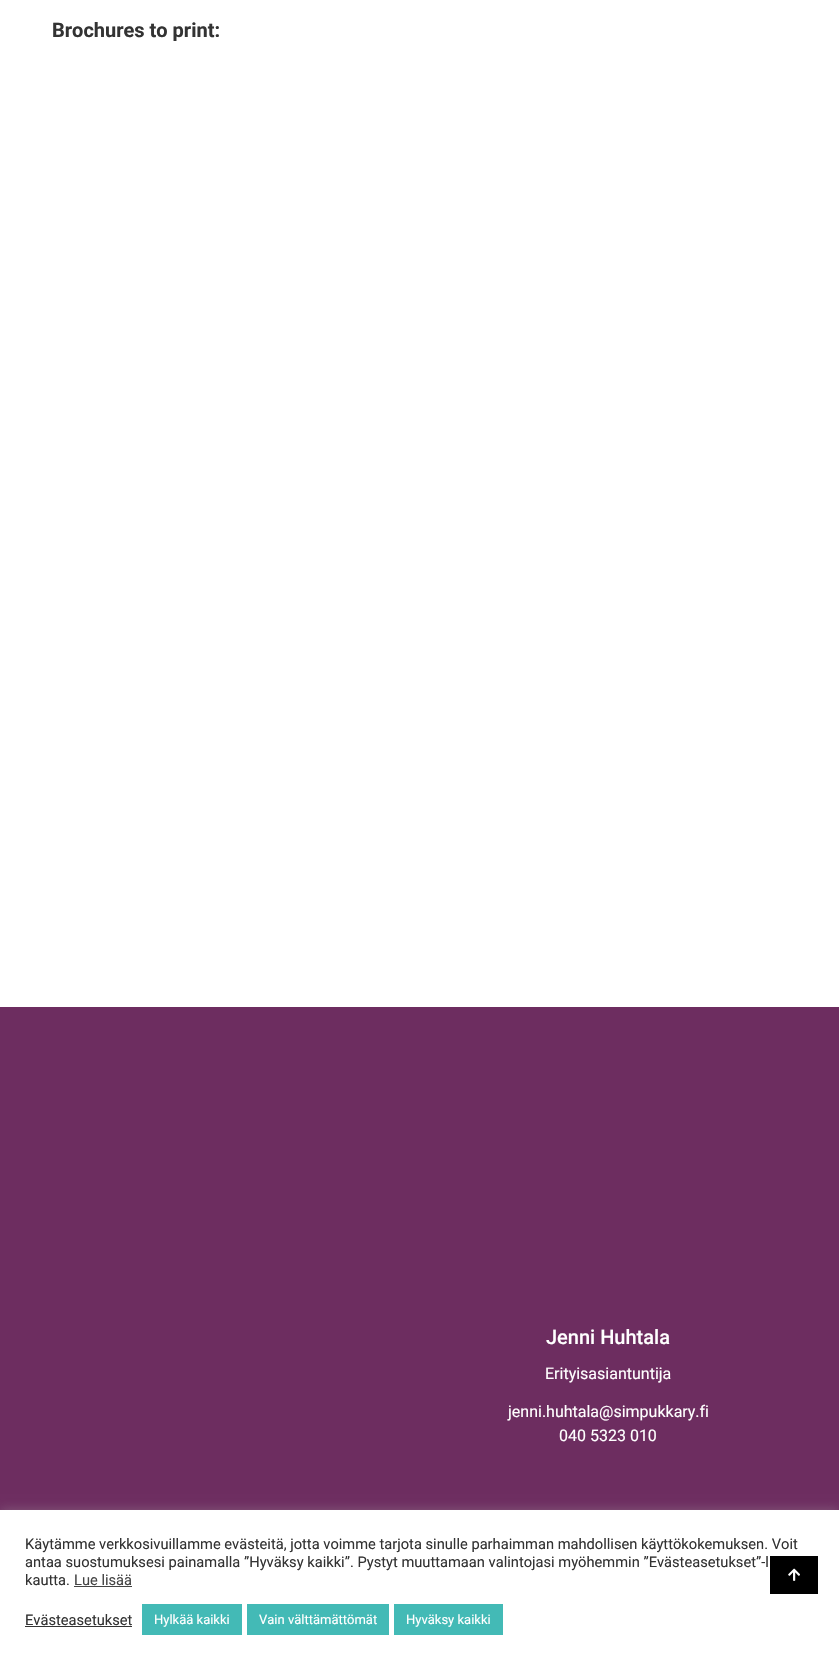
void draw(SkCanvas* canvas) {
  SkPaint paint;
  paint.setAntiAlias(true);
  auto face = [&](const char* family, int weight, float size, bool italic = false) {
    SkFontStyle style(weight, SkFontStyle::kNormal_Width,
      italic ? SkFontStyle::kItalic_Slant : SkFontStyle::kUpright_Slant);
    SkFont result(fontMgr->matchFamilyStyle(family, style), size);
    result.setSubpixel(true);
    return result;
  };
  auto paste = [&](const char* path, float x, float y, float w, float h) {
    auto image = SkImages::DeferredFromEncodedData(SkData::MakeFromFileName(path));
    canvas->drawImageRect(image, SkRect::MakeXYWH(x, y, w, h), SkSamplingOptions());
  };
  canvas->clear(0xffffffff);
  paint.setColor(0xff6d2d60);
  canvas->drawRect(SkRect::MakeXYWH(0, 1007, 839, 503), paint);
  paint.setColor(0x4dacabab);
  paint.setMaskFilter(SkMaskFilter::MakeBlur(kNormal_SkBlurStyle, 5));
  canvas->drawRect(SkRect::MakeXYWH(0, 1509, 839, 155), paint);
  paint.setMaskFilter(nullptr);
  {
    const struct { float x, y, w, h; SkColor color; } items[] = {
      {0, 1510, 839, 155, 0xffffffff},
      {74, 1586, 58, 1, 0xff444444},
      {25, 1626, 107, 1, 0xff333333},
      {142, 1604, 100, 31, 0xff43bab6},
      {247, 1604, 142, 31, 0xff43bab6},
      {394, 1604, 109, 31, 0xff43bab6},
      {770, 1556, 48, 38, 0xff000000},
    };
    for (auto [x, y, w, h, color] : items) {
      paint.setColor(color);
      canvas->drawRect(SkRect::MakeXYWH(x, y, w, h), paint);
    }
  }
  paste("img/1.png", 788, 1568, 12, 13);
  auto f0 = face("Roboto", 700, 20);
  paint.setColor(0xff333333);
  canvas->drawString("Brochures to print:", 52, 37, f0, paint);
  auto f1 = face("Roboto", 500, 20);
  paint.setColor(0xffffffff);
  canvas->drawString("Jenni Huhtala", 546, 1344, f1, paint);
  auto f2 = face("Roboto", 400, 16);
  {
    const struct { const char* s; float x, y; } items[] = {
      {"Erityisasiantuntija", 545, 1379},
      {"jenni.huhtala@simpukkary.fi", 508, 1417},
      {"040 5323 010", 559, 1441},
    };
    for (auto [s, x, y] : items) {
      canvas->drawString(s, x, y, f2, paint);
    }
  }
  auto f3 = face("Roboto", 400, 14.67f);
  paint.setColor(0xff333333);
  {
    const struct { const char* s; float x, y; } items[] = {
      {"Käytämme verkkosivuillamme evästeitä, jotta voimme tarjota sinulle parhaimman mahdollisen käyttökokemuksen. Voit", 25, 1549},
      {"antaa suostumuksesi painamalla ”Hyväksy kaikki”. Pystyt muuttamaan valintojasi myöhemmin ”Evästeasetukset”-l", 25, 1567},
      {"kautta.", 25, 1585},
    };
    for (auto [s, x, y] : items) {
      canvas->drawString(s, x, y, f3, paint);
    }
  }
  paint.setColor(0xff444444);
  canvas->drawString("Lue lisää", 74, 1585, f3, paint);
  paint.setColor(0xff333333);
  canvas->drawString("Evästeasetukset", 25, 1625, f3, paint);
  auto f4 = face("Roboto", 400, 13);
  paint.setColor(0xffffffff);
  {
    const struct { const char* s; float x, y; } items[] = {
      {"Hylkää kaikki", 154, 1624},
      {"Vain välttämättömät", 259, 1624},
      {"Hyväksy kaikki", 406, 1624},
    };
    for (auto [s, x, y] : items) {
      canvas->drawString(s, x, y, f4, paint);
    }
  }
}
